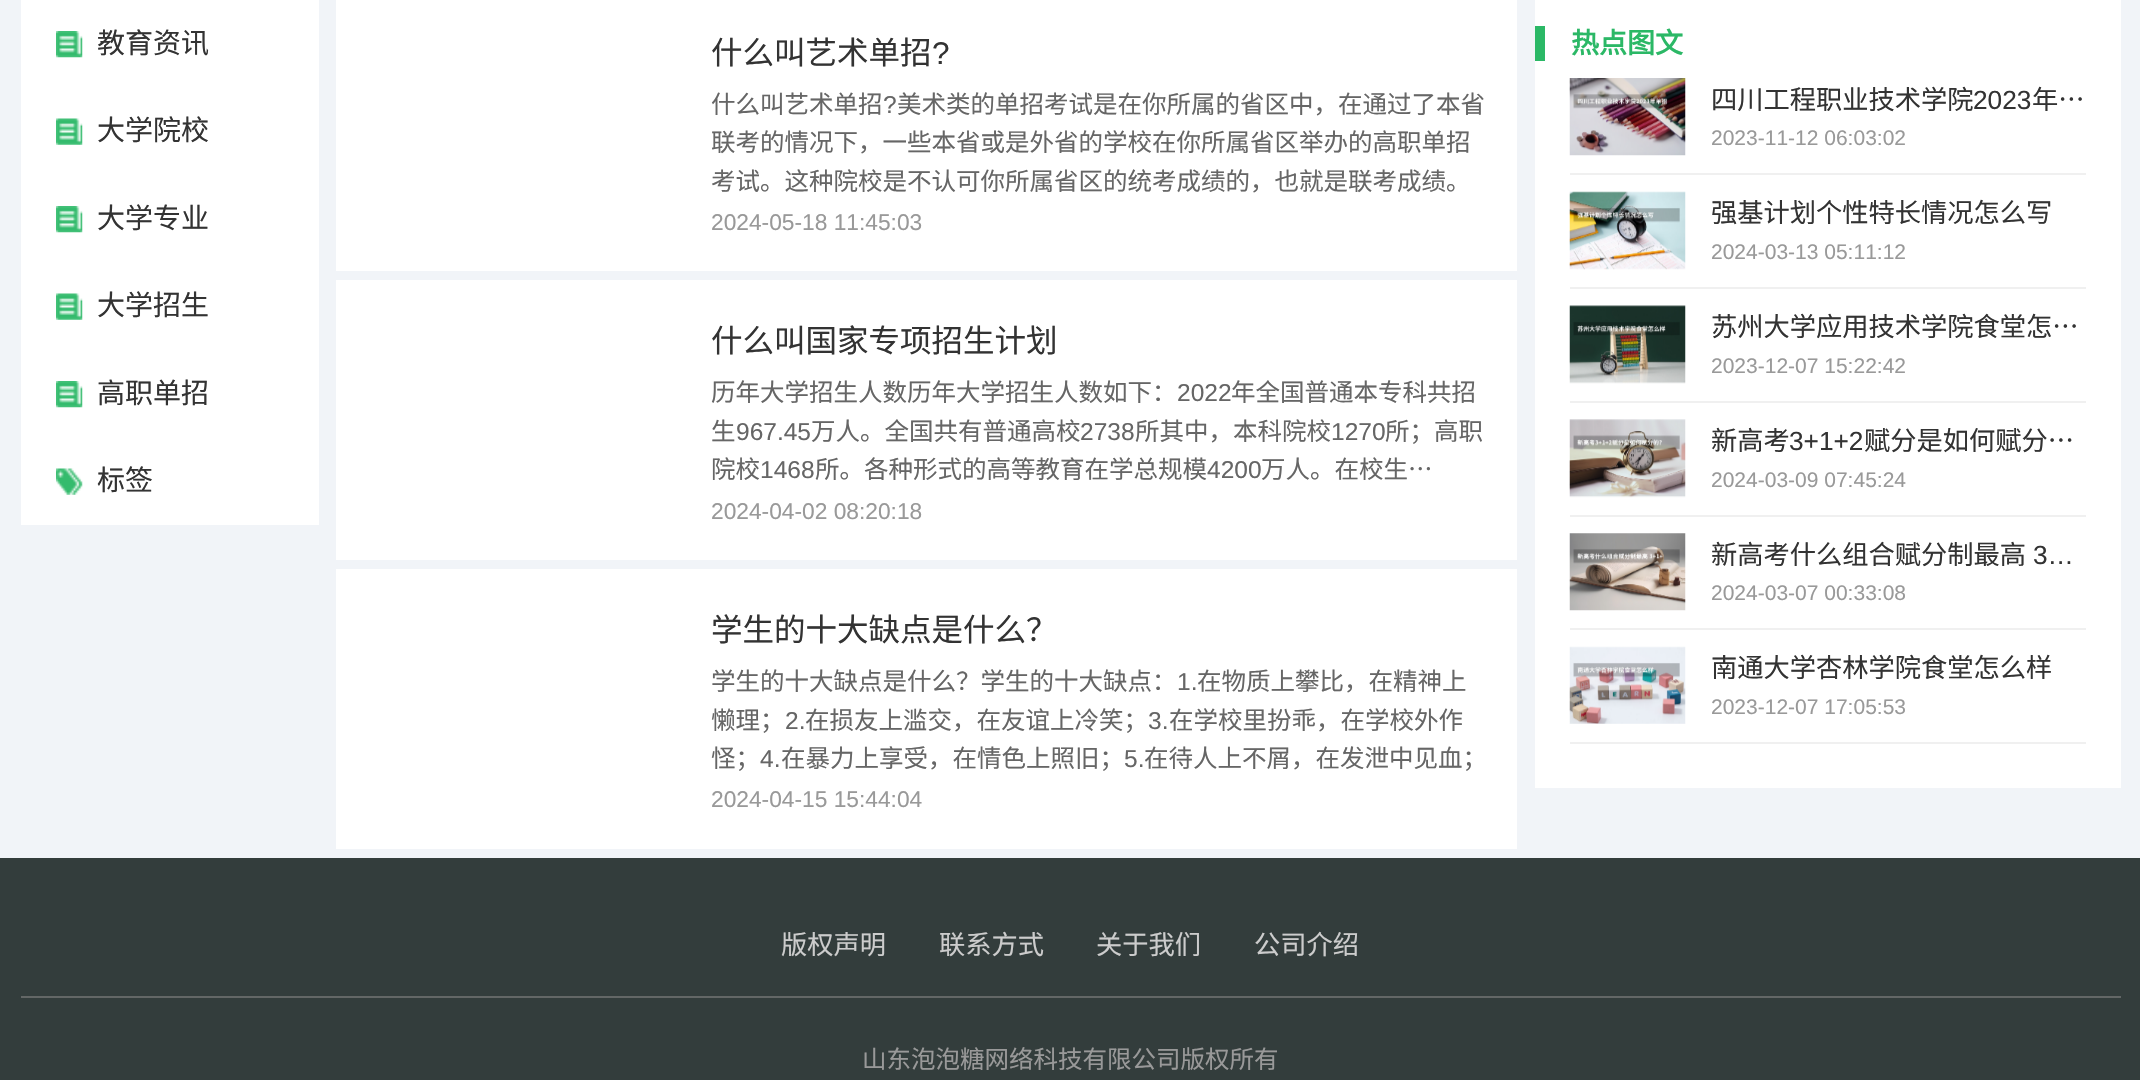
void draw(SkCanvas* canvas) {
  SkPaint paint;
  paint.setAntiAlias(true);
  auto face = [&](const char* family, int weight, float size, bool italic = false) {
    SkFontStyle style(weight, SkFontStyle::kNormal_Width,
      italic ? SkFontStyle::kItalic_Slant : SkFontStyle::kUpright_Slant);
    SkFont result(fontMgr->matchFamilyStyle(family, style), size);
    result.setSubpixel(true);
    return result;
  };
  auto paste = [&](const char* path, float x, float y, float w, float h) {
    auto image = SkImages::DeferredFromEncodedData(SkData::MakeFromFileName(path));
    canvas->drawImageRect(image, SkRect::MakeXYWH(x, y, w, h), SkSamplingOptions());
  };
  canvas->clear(0xfff1f4f8);
  paint.setColor(0xffffffff);
  canvas->drawRect(SkRect::MakeXYWH(21, 0, 298, 525), paint);
  paste("img/1.png", 56, 31, 27, 27);
  paste("img/2.png", 56, 118, 27, 27);
  paste("img/1.png", 56, 206, 27, 27);
  paste("img/3.png", 56, 293, 27, 27);
  paste("img/1.png", 56, 381, 27, 27);
  paste("img/4.png", 56, 468, 27, 27);
  {
    const struct { float x, y, w, h; SkColor color; } items[] = {
      {336, 0, 1181, 271, 0xffffffff},
      {336, 280, 1181, 280, 0xffffffff},
      {336, 569, 1181, 280, 0xffffffff},
      {1535, 0, 586, 788, 0xffffffff},
      {1535, 26, 10, 35, 0xff2bb866},
      {1570, 173, 516, 2, 0xfff0f0f0},
    };
    for (auto [x, y, w, h, color] : items) {
      paint.setColor(color);
      canvas->drawRect(SkRect::MakeXYWH(x, y, w, h), paint);
    }
  }
  paste("img/5.png", 1569, 78, 117, 78);
  canvas->drawRect(SkRect::MakeXYWH(1570, 287, 516, 2), paint);
  paste("img/6.png", 1569, 191, 117, 79);
  canvas->drawRect(SkRect::MakeXYWH(1570, 401, 516, 2), paint);
  paste("img/7.png", 1569, 305, 117, 79);
  canvas->drawRect(SkRect::MakeXYWH(1570, 515, 516, 2), paint);
  paste("img/8.png", 1569, 419, 117, 79);
  canvas->drawRect(SkRect::MakeXYWH(1570, 628, 516, 2), paint);
  paste("img/9.png", 1569, 533, 117, 78);
  canvas->drawRect(SkRect::MakeXYWH(1570, 742, 516, 2), paint);
  paste("img/10.png", 1569, 646, 117, 78);
  paint.setColor(0xff333d3c);
  canvas->drawRect(SkRect::MakeXYWH(0, 858, 2140, 222), paint);
  paint.setColor(0xff636766);
  canvas->drawRect(SkRect::MakeXYWH(21, 996, 2100, 2), paint);
  auto f0 = face("Noto Sans CJK SC", 400, 28);
  paint.setColor(0xff333333);
  {
    const struct { const char* s; float x, y; } items[] = {
      {"教育资讯", 97, 53},
      {"大学院校", 97, 140},
      {"大学专业", 97, 228},
      {"大学招生", 97, 315},
      {"高职单招", 97, 403},
      {"标签", 97, 490},
    };
    for (auto [s, x, y] : items) {
      canvas->drawString(s, x, y, f0, paint);
    }
  }
  auto f1 = face("Noto Sans CJK SC", 400, 31.5f);
  canvas->drawString("什么叫艺术单招", 711, 64, f1, paint);
  auto f2 = face("Liberation Sans", 400, 31.5f);
  canvas->drawString("?", 932, 64, f2, paint);
  auto f3 = face("Noto Sans CJK SC", 400, 24.5f);
  paint.setColor(0xff666666);
  canvas->drawString("什么叫艺术单招", 711, 113, f3, paint);
  auto f4 = face("Liberation Sans", 400, 24.5f);
  canvas->drawString("?", 883, 113, f4, paint);
  {
    const struct { const char* s; float x, y; } items[] = {
      {"美术类的单招考试是在你所属的省区中，在通过了本省", 897, 113},
      {"联考的情况下，一些本省或是外省的学校在你所属省区举办的高职单招", 711, 151},
      {"考试。这种院校是不认可你所属省区的统考成绩的，也就是联考成绩。", 711, 190},
    };
    for (auto [s, x, y] : items) {
      canvas->drawString(s, x, y, f3, paint);
    }
  }
  auto f5 = face("Liberation Sans", 400, 22.75f);
  paint.setColor(0xff999999);
  canvas->drawString("2024-05-18 11:45:03", 711, 230, f5, paint);
  paint.setColor(0xff333333);
  canvas->drawString("什么叫国家专项招生计划", 711, 352, f1, paint);
  paint.setColor(0xff666666);
  canvas->drawString("历年大学招生人数历年大学招生人数如下：", 711, 401, f3, paint);
  canvas->drawString("2022", 1177, 401, f4, paint);
  canvas->drawString("年全国普通本专科共招", 1231, 401, f3, paint);
  canvas->drawString("生", 711, 440, f3, paint);
  canvas->drawString("967.45", 736, 440, f4, paint);
  canvas->drawString("万人。全国共有普通高校", 811, 440, f3, paint);
  canvas->drawString("2738", 1080, 440, f4, paint);
  canvas->drawString("所其中，本科院校", 1135, 440, f3, paint);
  canvas->drawString("1270", 1331, 440, f4, paint);
  canvas->drawString("所；高职", 1385, 440, f3, paint);
  canvas->drawString("院校", 711, 478, f3, paint);
  canvas->drawString("1468", 760, 478, f4, paint);
  canvas->drawString("所。各种形式的高等教育在学总规模", 815, 478, f3, paint);
  canvas->drawString("4200", 1207, 478, f4, paint);
  canvas->drawString("万人。在校生…", 1261, 478, f3, paint);
  paint.setColor(0xff999999);
  canvas->drawString("2024-04-02 08:20:18", 711, 519, f5, paint);
  paint.setColor(0xff333333);
  canvas->drawString("学生的十大缺点是什么？", 711, 641, f1, paint);
  paint.setColor(0xff666666);
  canvas->drawString("学生的十大缺点是什么？学生的十大缺点：", 711, 690, f3, paint);
  canvas->drawString("1.", 1177, 690, f4, paint);
  canvas->drawString("在物质上攀比，在精神上", 1197, 690, f3, paint);
  canvas->drawString("懒理；", 711, 729, f3, paint);
  canvas->drawString("2.", 785, 729, f4, paint);
  canvas->drawString("在损友上滥交，在友谊上冷笑；", 805, 729, f3, paint);
  canvas->drawString("3.", 1148, 729, f4, paint);
  canvas->drawString("在学校里扮乖，在学校外作", 1169, 729, f3, paint);
  canvas->drawString("怪；", 711, 767, f3, paint);
  canvas->drawString("4.", 760, 767, f4, paint);
  canvas->drawString("在暴力上享受，在情色上照旧；", 781, 767, f3, paint);
  canvas->drawString("5.", 1124, 767, f4, paint);
  canvas->drawString("在待人上不屑，在发泄中见血；", 1144, 767, f3, paint);
  paint.setColor(0xff999999);
  canvas->drawString("2024-04-15 15:44:04", 711, 807, f5, paint);
  auto f6 = face("Noto Sans CJK SC", 700, 28);
  paint.setColor(0xff2bb866);
  canvas->drawString("热点图文", 1571, 53, f6, paint);
  auto f7 = face("Noto Sans CJK SC", 400, 26.25f);
  paint.setColor(0xff333333);
  canvas->drawString("四川工程职业技术学院", 1711, 109, f7, paint);
  auto f8 = face("Liberation Sans", 400, 26.25f);
  canvas->drawString("2023", 1973, 109, f8, paint);
  canvas->drawString("年…", 2032, 109, f7, paint);
  auto f9 = face("Liberation Sans", 400, 21);
  paint.setColor(0xff999999);
  canvas->drawString("2023-11-12 06:03:02", 1711, 145, f9, paint);
  paint.setColor(0xff333333);
  canvas->drawString("强基计划个性特长情况怎么写", 1711, 222, f7, paint);
  paint.setColor(0xff999999);
  canvas->drawString("2024-03-13 05:11:12", 1711, 259, f9, paint);
  paint.setColor(0xff333333);
  canvas->drawString("苏州大学应用技术学院食堂怎…", 1711, 336, f7, paint);
  paint.setColor(0xff999999);
  canvas->drawString("2023-12-07 15:22:42", 1711, 373, f9, paint);
  canvas->save();
  canvas->clipRect(SkRect::MakeXYWH(1712, 420, 374, 42));
  paint.setColor(0xff333333);
  canvas->drawString("新高考", 1711, 450, f7, paint);
  canvas->restore();
  canvas->drawString("3+1+2", 1789, 450, f8, paint);
  canvas->drawString("赋分是如何赋分…", 1864, 450, f7, paint);
  paint.setColor(0xff999999);
  canvas->drawString("2024-03-09 07:45:24", 1711, 487, f9, paint);
  canvas->save();
  canvas->clipRect(SkRect::MakeXYWH(1712, 534, 374, 42));
  paint.setColor(0xff333333);
  canvas->drawString("新高考什么组合赋分制最高", 1711, 564, f7, paint);
  canvas->restore();
  canvas->drawString("3…", 2033, 564, f8, paint);
  paint.setColor(0xff999999);
  canvas->drawString("2024-03-07 00:33:08", 1711, 600, f9, paint);
  paint.setColor(0xff333333);
  canvas->drawString("南通大学杏林学院食堂怎么样", 1711, 677, f7, paint);
  paint.setColor(0xff999999);
  canvas->drawString("2023-12-07 17:05:53", 1711, 714, f9, paint);
  paint.setColor(0xffcccccc);
  {
    const struct { const char* s; float x, y; } items[] = {
      {"版权声明", 781, 954},
      {"联系方式", 939, 954},
      {"关于我们", 1096, 954},
      {"公司介绍", 1254, 954},
    };
    for (auto [s, x, y] : items) {
      canvas->drawString(s, x, y, f7, paint);
    }
  }
  paint.setColor(0xff999999);
  canvas->drawString("山东泡泡糖网络科技有限公司版权所有", 862, 1068, f3, paint);
}
